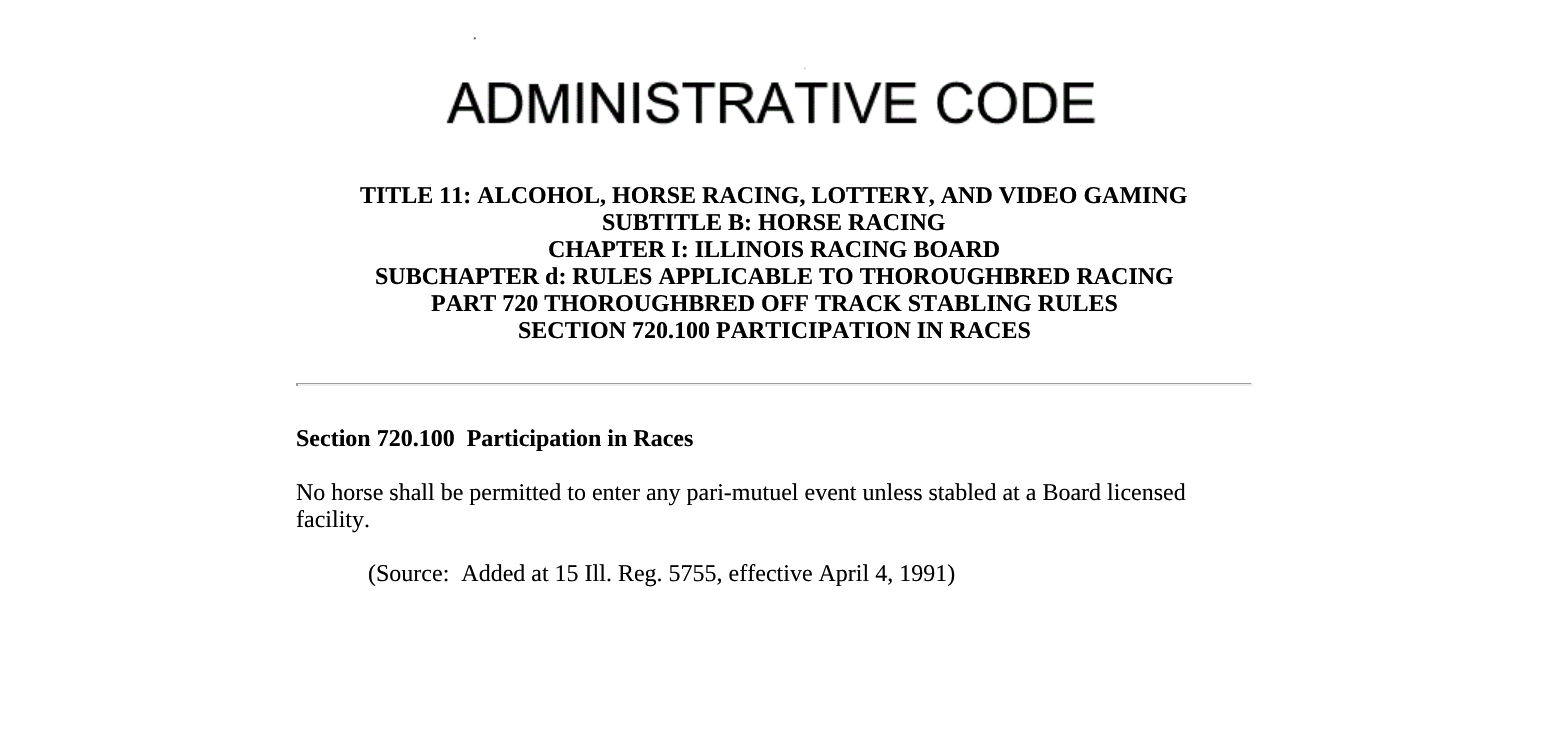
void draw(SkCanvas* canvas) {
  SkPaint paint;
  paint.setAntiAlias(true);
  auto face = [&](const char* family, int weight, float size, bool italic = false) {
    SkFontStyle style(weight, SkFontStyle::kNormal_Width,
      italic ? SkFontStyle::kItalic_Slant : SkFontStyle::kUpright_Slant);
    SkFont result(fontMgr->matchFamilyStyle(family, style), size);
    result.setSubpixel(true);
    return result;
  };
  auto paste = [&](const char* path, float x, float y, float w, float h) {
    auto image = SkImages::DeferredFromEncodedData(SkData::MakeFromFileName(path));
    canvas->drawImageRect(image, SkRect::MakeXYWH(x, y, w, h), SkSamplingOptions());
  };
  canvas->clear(0xffffffff);
  paste("img/1.png", 446, 37, 650, 88);
  {
    const struct { float x, y, w, h; SkColor color; } items[] = {
      {296, 383, 957, 1, 0xff9f9f9f},
      {1251, 383, 2, 3, 0xffeeeeee},
      {296, 384, 957, 2, 0xffeeeeee},
      {296, 383, 2, 3, 0xff9f9f9f},
    };
    for (auto [x, y, w, h, color] : items) {
      paint.setColor(color);
      canvas->drawRect(SkRect::MakeXYWH(x, y, w, h), paint);
    }
  }
  auto f0 = face("Liberation Serif", 700, 24);
  paint.setColor(0xff000000);
  {
    const struct { const char* s; float x, y; } items[] = {
      {"TITLE 11: ALCOHOL, HORSE RACING, LOTTERY, AND VIDEO GAMING", 360, 203},
      {"SUBTITLE B: HORSE RACING", 602, 230},
      {"CHAPTER I: ILLINOIS RACING BOARD", 548, 257},
      {"SUBCHAPTER d: RULES APPLICABLE TO THOROUGHBRED RACING", 375, 284},
      {"PART 720 THOROUGHBRED OFF TRACK STABLING RULES", 431, 311},
      {"SECTION 720.100 PARTICIPATION IN RACES", 518, 338},
      {"Section 720.100  Participation in Races", 296, 446},
    };
    for (auto [s, x, y] : items) {
      canvas->drawString(s, x, y, f0, paint);
    }
  }
  auto f1 = face("Liberation Serif", 400, 24);
  {
    const struct { const char* s; float x, y; } items[] = {
      {"No horse shall be permitted to enter any pari-mutuel event unless stabled at a Board licensed", 296, 500},
      {"facility.", 296, 527},
      {"(Source:  Added at 15 Ill. Reg. 5755, effective April 4, 1991)", 368, 581},
    };
    for (auto [s, x, y] : items) {
      canvas->drawString(s, x, y, f1, paint);
    }
  }
}
